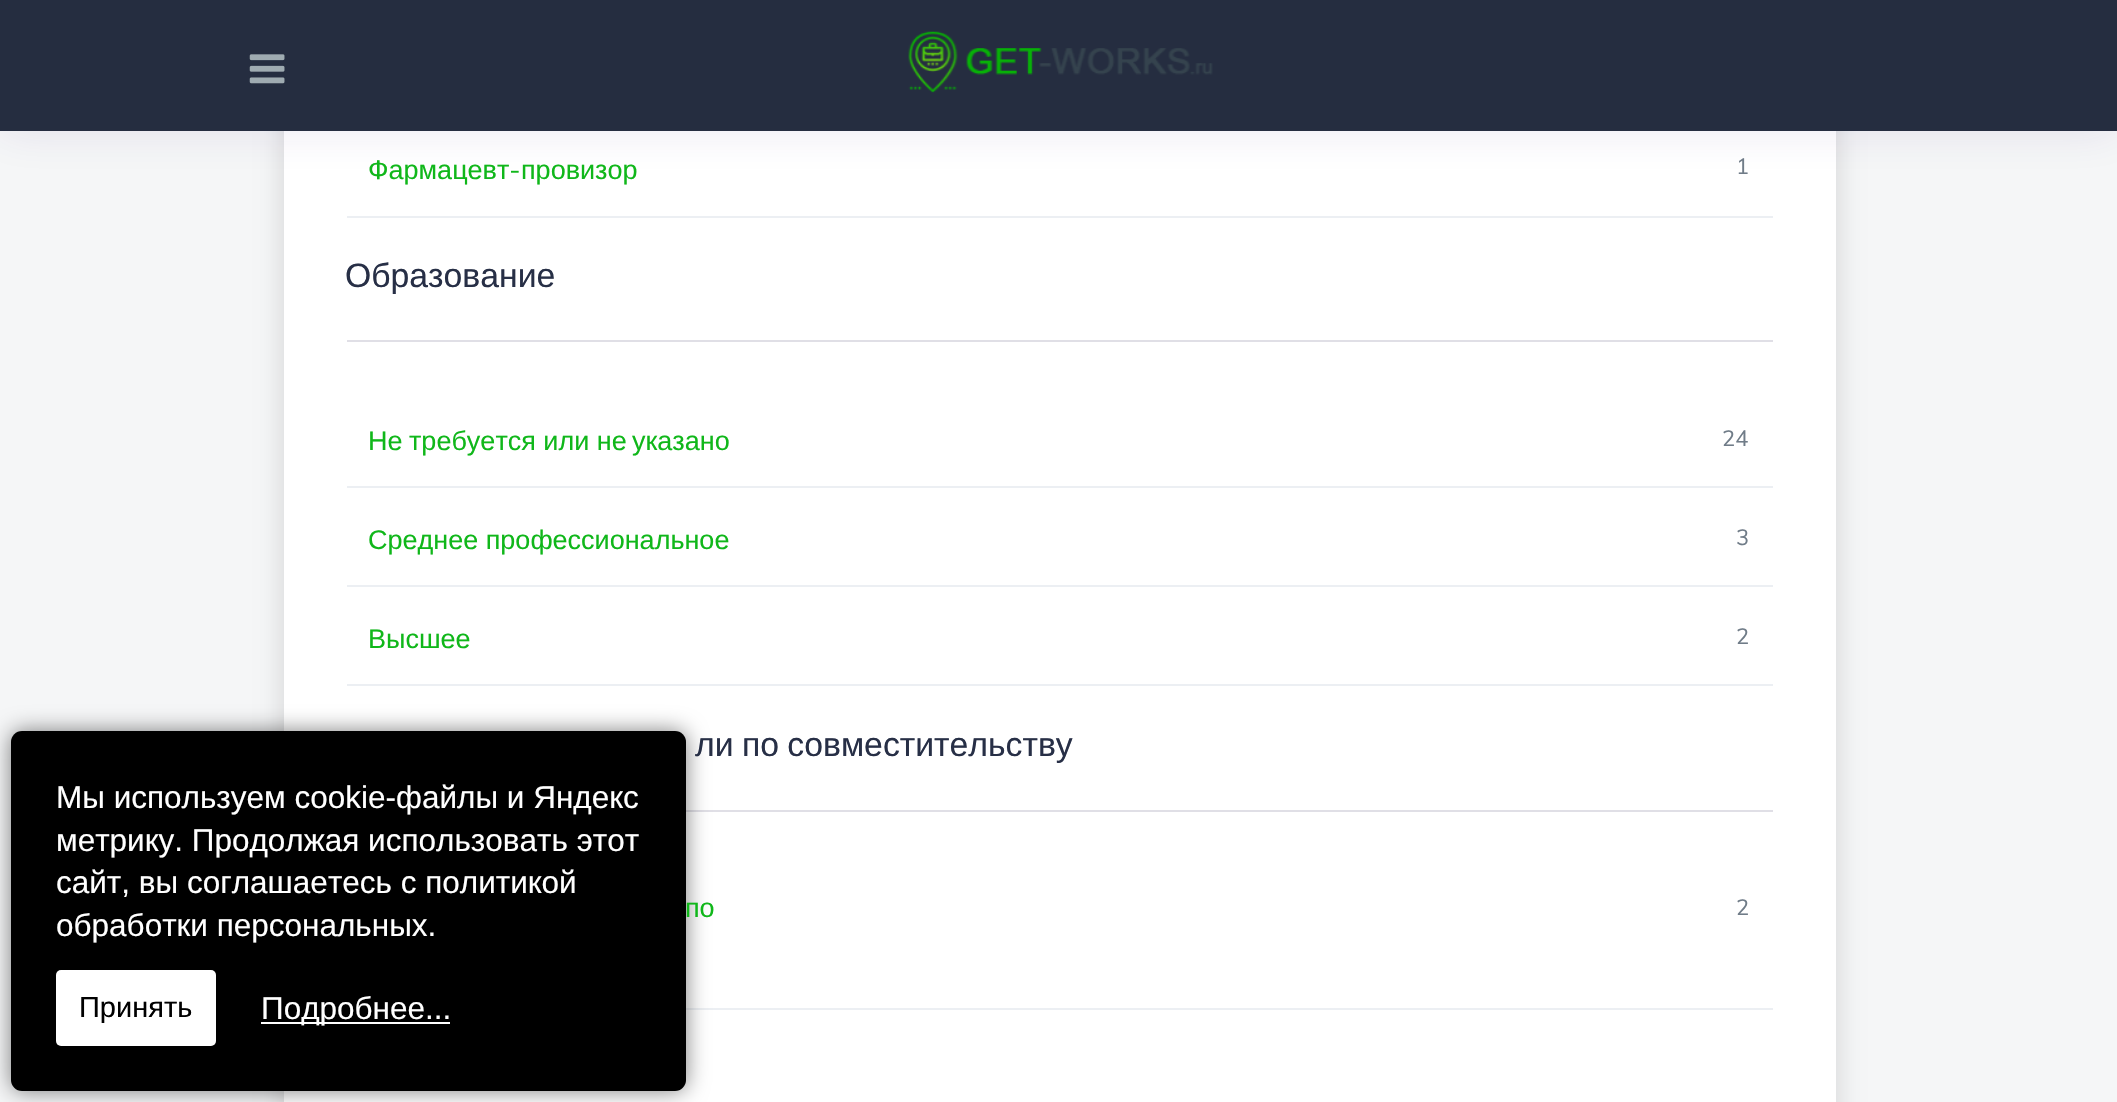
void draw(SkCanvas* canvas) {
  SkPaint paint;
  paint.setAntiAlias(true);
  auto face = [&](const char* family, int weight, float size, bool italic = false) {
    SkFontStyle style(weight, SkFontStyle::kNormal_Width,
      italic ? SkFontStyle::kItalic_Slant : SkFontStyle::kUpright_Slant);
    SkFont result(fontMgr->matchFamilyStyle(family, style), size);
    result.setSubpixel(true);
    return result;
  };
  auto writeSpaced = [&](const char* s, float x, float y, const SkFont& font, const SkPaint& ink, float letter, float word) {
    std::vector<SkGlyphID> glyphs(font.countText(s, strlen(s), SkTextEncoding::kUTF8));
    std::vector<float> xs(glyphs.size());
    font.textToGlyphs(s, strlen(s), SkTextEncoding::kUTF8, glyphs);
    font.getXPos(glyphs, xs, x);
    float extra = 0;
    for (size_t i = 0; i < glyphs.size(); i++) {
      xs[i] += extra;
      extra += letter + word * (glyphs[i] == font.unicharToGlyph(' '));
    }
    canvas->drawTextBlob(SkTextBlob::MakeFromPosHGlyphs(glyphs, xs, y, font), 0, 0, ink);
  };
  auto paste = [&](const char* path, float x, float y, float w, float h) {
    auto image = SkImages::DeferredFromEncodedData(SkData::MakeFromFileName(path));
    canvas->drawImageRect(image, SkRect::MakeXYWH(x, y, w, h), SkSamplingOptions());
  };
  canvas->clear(0xfff5f6f7);
  paint.setColor(0x1a000000);
  paint.setMaskFilter(SkMaskFilter::MakeBlur(kNormal_SkBlurStyle, 11));
  canvas->drawRoundRect(SkRect::MakeXYWH(279, -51, 1562, 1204), 18, 18, paint);
  paint.setMaskFilter(nullptr);
  paint.setColor(0xffffffff);
  canvas->drawRect(SkRect::MakeXYWH(284, 131, 1552, 971), paint);
  paint.setColor(0x1a3e1c83);
  paint.setMaskFilter(SkMaskFilter::MakeBlur(kNormal_SkBlurStyle, 22.5f));
  canvas->drawRect(SkRect::MakeXYWH(0, 0, 2117, 131), paint);
  paint.setMaskFilter(nullptr);
  paint.setColor(0xff252d40);
  canvas->drawRect(SkRect::MakeXYWH(0, 0, 2117, 131), paint);
  paste("img/1.png", 249, 54, 36, 30);
  paste("img/2.png", 908, 31, 305, 62);
  {
    const struct { float x, y, w, h; SkColor color; } items[] = {
      {347, 216, 1426, 2, 0xffeceff3},
      {347, 340, 1426, 2, 0xffe0dfe6},
      {347, 486, 1426, 2, 0xffeceff3},
      {347, 585, 1426, 2, 0xffeceff3},
      {347, 684, 1426, 2, 0xffeceff3},
      {686, 810, 1087, 2, 0xffe0dfe6},
      {686, 1008, 1087, 2, 0xffeceff3},
    };
    for (auto [x, y, w, h, color] : items) {
      paint.setColor(color);
      canvas->drawRect(SkRect::MakeXYWH(x, y, w, h), paint);
    }
  }
  paint.setColor(0x80000000);
  paint.setMaskFilter(SkMaskFilter::MakeBlur(kNormal_SkBlurStyle, 11));
  canvas->drawRoundRect(SkRect::MakeXYWH(11, 731, 675, 360), 11, 11, paint);
  paint.setMaskFilter(nullptr);
  paint.setColor(0xff000000);
  canvas->drawRoundRect(SkRect::MakeXYWH(11, 731, 675, 360), 11, 11, paint);
  paint.setColor(0xffffffff);
  canvas->drawRoundRect(SkRect::MakeXYWH(56, 970, 160, 76), 5, 5, paint);
  canvas->drawRect(SkRect::MakeXYWH(261, 1022, 189, 2), paint);
  auto f0 = face("Liberation Sans", 400, 27);
  paint.setColor(0xff10b71a);
  canvas->drawString("Фармацевт", 368, 179, f0, paint);
  auto f1 = face("Muli", 400, 27);
  canvas->drawString("-", 509, 179, f1, paint);
  canvas->drawString("провизор", 521, 179, f0, paint);
  auto f2 = face("Muli", 400, 22);
  paint.setColor(0xff707c88);
  canvas->drawString("1", 1736, 174, f2, paint);
  auto f3 = face("Liberation Sans", 400, 33.75f);
  paint.setColor(0xff272f46);
  canvas->drawString("Образование", 345, 287, f3, paint);
  paint.setColor(0xff10b71a);
  {
    const struct { const char* s; float x, y; } items[] = {
      {"Не", 368, 450},
      {"требуется или не", 409, 450},
      {"указано", 632, 450},
    };
    for (auto [s, x, y] : items) {
      canvas->drawString(s, x, y, f0, paint);
    }
  }
  paint.setColor(0xff707c88);
  canvas->drawString("24", 1722, 446, f2, paint);
  paint.setColor(0xff10b71a);
  canvas->drawString("Среднее профессиональное", 368, 549, f0, paint);
  paint.setColor(0xff707c88);
  canvas->drawString("3", 1736, 545, f2, paint);
  paint.setColor(0xff10b71a);
  canvas->drawString("Высшее", 368, 648, f0, paint);
  paint.setColor(0xff707c88);
  canvas->drawString("2", 1736, 644, f2, paint);
  paint.setColor(0xff272f46);
  writeSpaced("ли по совместительству", 695, 756, f3, paint, 0, -1);
  paint.setColor(0xff10b71a);
  canvas->drawString("по", 685, 917, f0, paint);
  paint.setColor(0xff707c88);
  canvas->drawString("2", 1736, 915, f2, paint);
  auto f4 = face("Liberation Sans", 400, 31.5f);
  paint.setColor(0xffffffff);
  {
    const struct { const char* s; float x, y; } items[] = {
      {"Мы используем cookie-файлы и Яндекс", 56, 808},
      {"метрику. Продолжая использовать этот", 56, 851},
      {"сайт, вы соглашаетесь с политикой", 56, 893},
      {"обработки персональных.", 56, 936},
    };
    for (auto [s, x, y] : items) {
      canvas->drawString(s, x, y, f4, paint);
    }
  }
  auto f5 = face("Liberation Sans", 400, 29);
  paint.setColor(0xff000000);
  canvas->drawString("Принять", 79, 1017, f5, paint);
  paint.setColor(0xffffffff);
  canvas->drawString("Подробнее...", 261, 1019, f4, paint);
}
